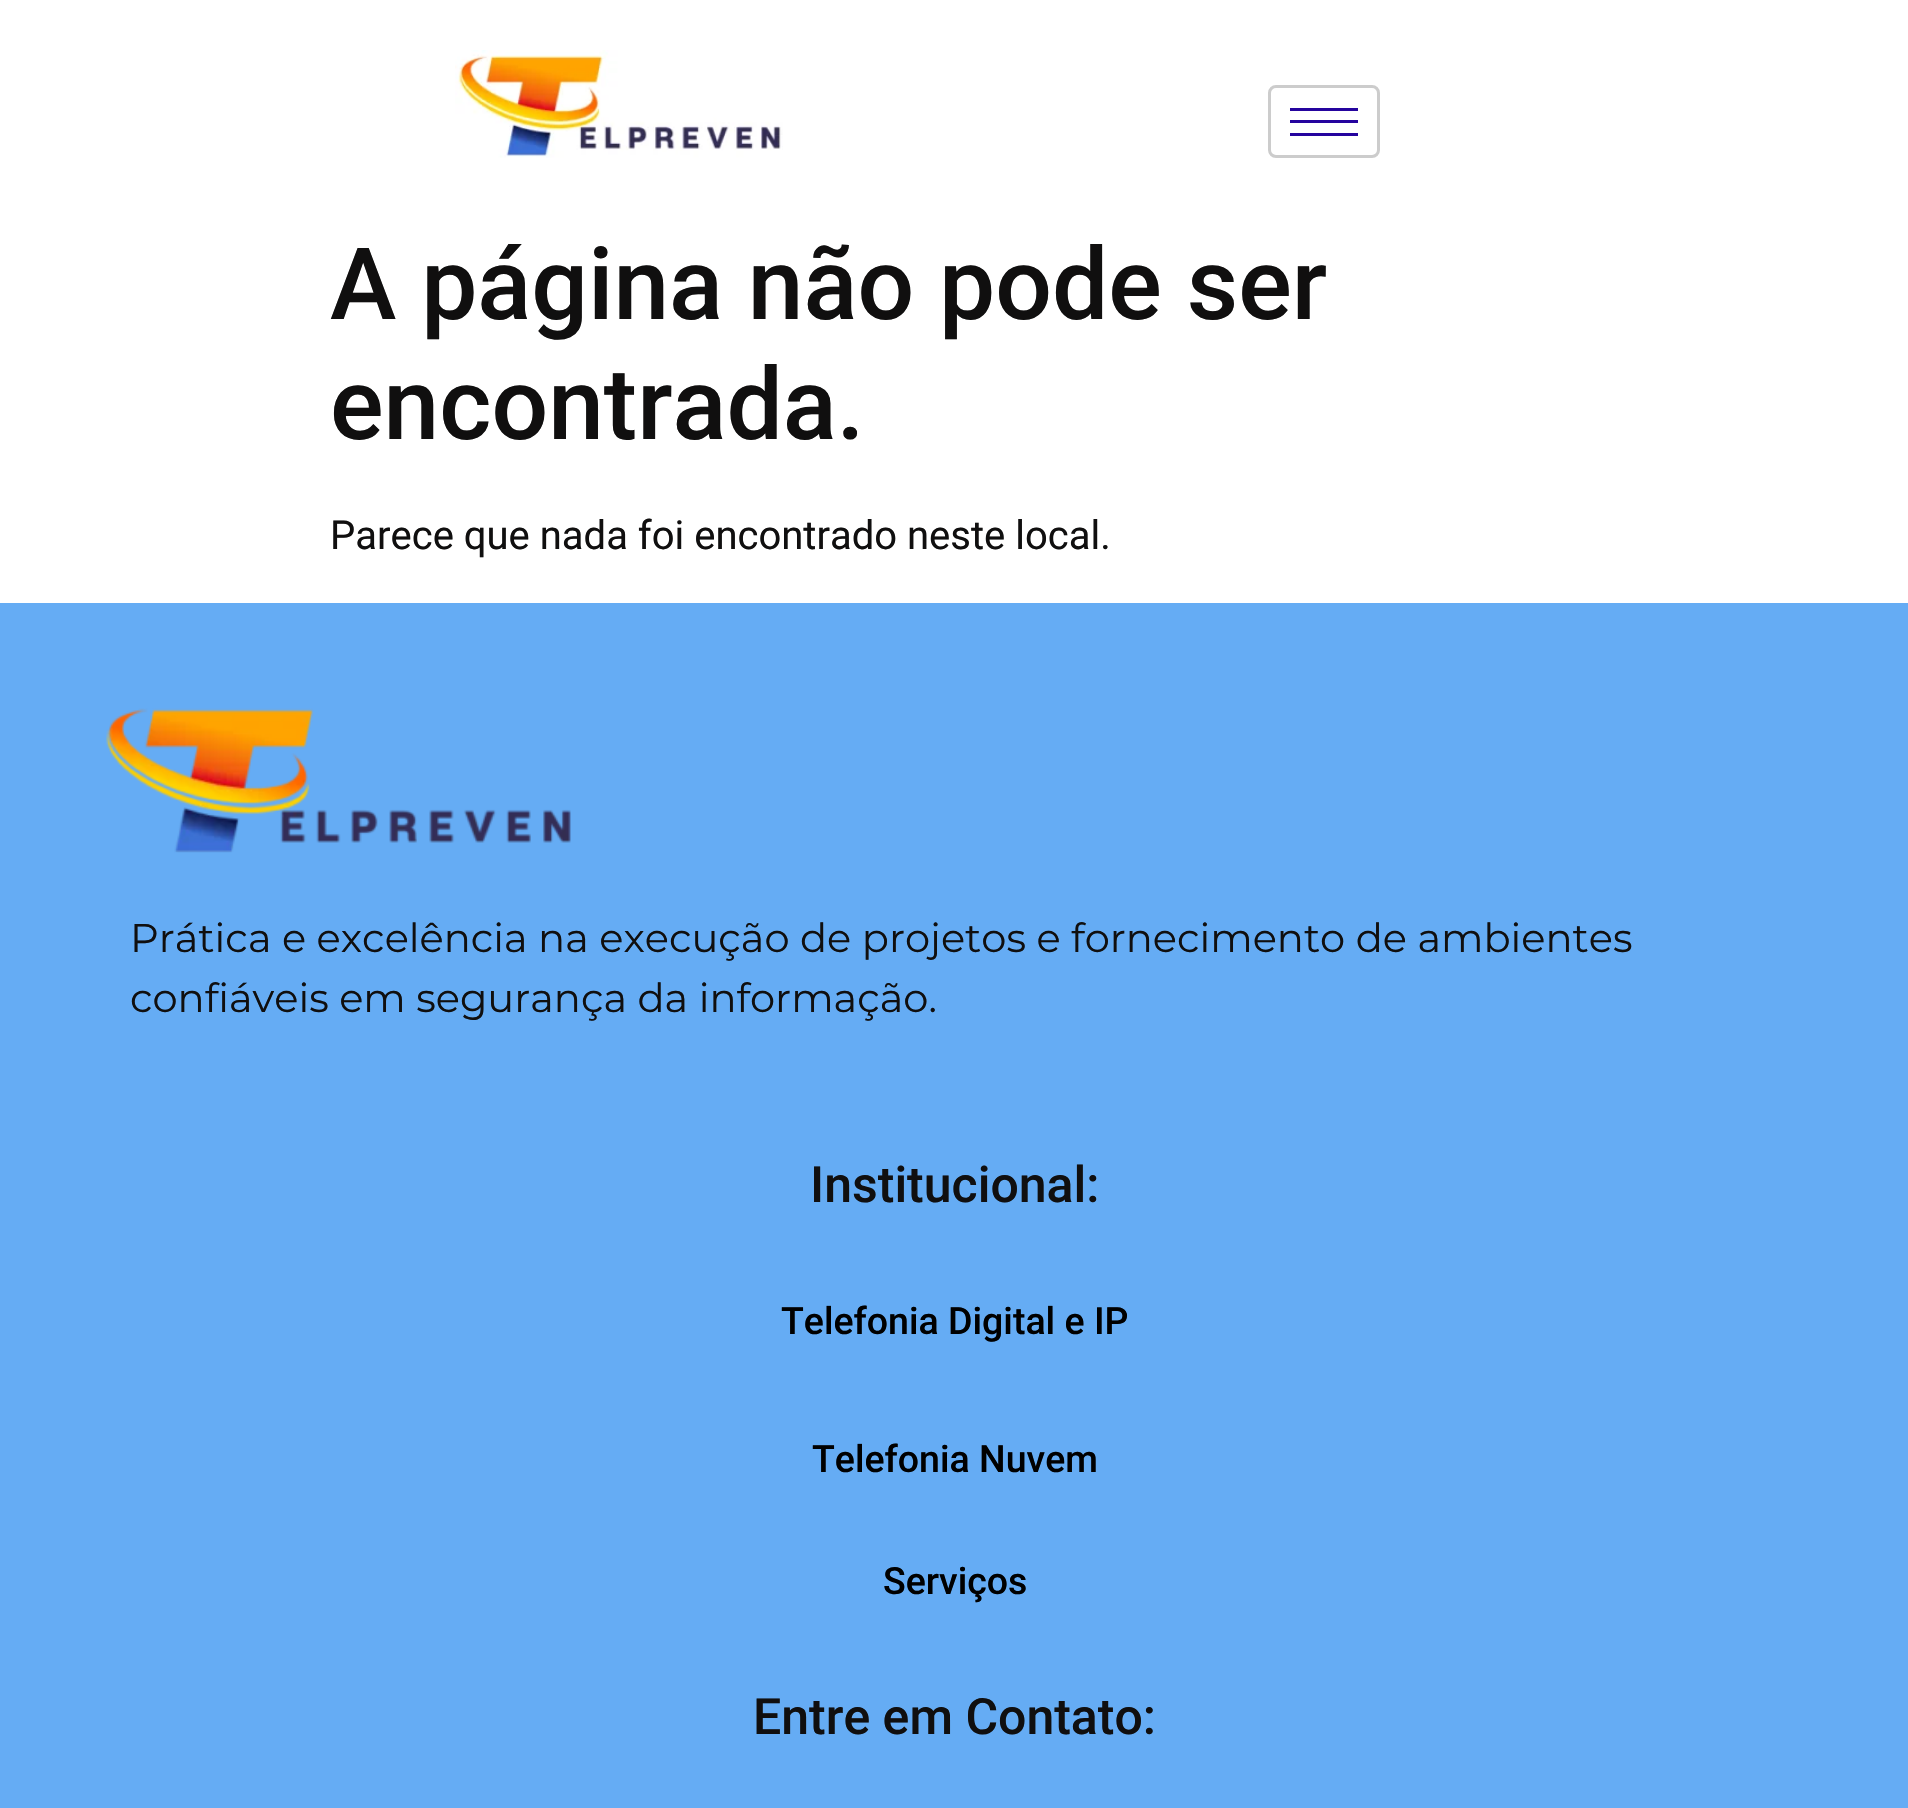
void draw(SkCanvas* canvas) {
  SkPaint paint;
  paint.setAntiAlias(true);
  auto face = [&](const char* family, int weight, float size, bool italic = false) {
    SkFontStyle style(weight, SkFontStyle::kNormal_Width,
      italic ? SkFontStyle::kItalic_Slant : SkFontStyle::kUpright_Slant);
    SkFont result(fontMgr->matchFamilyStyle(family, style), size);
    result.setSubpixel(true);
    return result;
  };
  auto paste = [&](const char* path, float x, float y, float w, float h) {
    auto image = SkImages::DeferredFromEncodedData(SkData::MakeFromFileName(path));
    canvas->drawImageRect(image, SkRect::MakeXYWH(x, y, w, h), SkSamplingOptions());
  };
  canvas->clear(0xffffffff);
  paste("img/1.png", 455, 50, 328, 108);
  paint.setStroke(true);
  paint.setStrokeWidth(3);
  paint.setColor(0xffcccccc);
  canvas->drawRoundRect(SkRect::MakeXYWH(1269.5f, 86.5f, 109, 70), 6.5f, 6.5f, paint);
  paint.setStroke(false);
  {
    const struct { float x, y, w, h; SkColor color; } items[] = {
      {1290, 108, 68, 3, 0xff25049e},
      {1290, 120, 68, 3, 0xff25049e},
      {1290, 133, 68, 3, 0xff25049e},
      {0, 603, 1908, 1205, 0xff65acf4},
    };
    for (auto [x, y, w, h, color] : items) {
      paint.setColor(color);
      canvas->drawRect(SkRect::MakeXYWH(x, y, w, h), paint);
    }
  }
  paste("img/2.png", 106, 708, 465, 145);
  auto f0 = face("Roboto", 500, 100);
  paint.setColor(0xff100f0f);
  canvas->drawString("A página não pode ser", 330, 319, f0, paint);
  canvas->drawString("encontrada.", 330, 439, f0, paint);
  auto f1 = face("Roboto", 400, 40);
  canvas->drawString("Parece que nada foi encontrado neste local.", 330, 549, f1, paint);
  auto f2 = face("Montserrat", 400, 40);
  canvas->drawString("Prática e excelência na execução de projetos e fornecimento de ambientes", 130, 952, f2, paint);
  canvas->drawString("confiáveis em segurança da informação.", 130, 1012, f2, paint);
  auto f3 = face("Roboto", 500, 50);
  canvas->drawString("Institucional:", 810, 1202, f3, paint);
  auto f4 = face("Roboto", 500, 37.5f);
  paint.setColor(0xff000000);
  {
    const struct { const char* s; float x, y; } items[] = {
      {"Telefonia Digital e IP", 781, 1334},
      {"Telefonia Nuvem", 812, 1472},
      {"Serviços", 883, 1594},
    };
    for (auto [s, x, y] : items) {
      canvas->drawString(s, x, y, f4, paint);
    }
  }
  paint.setColor(0xff100f0f);
  canvas->drawString("Entre em Contato:", 753, 1734, f3, paint);
}
